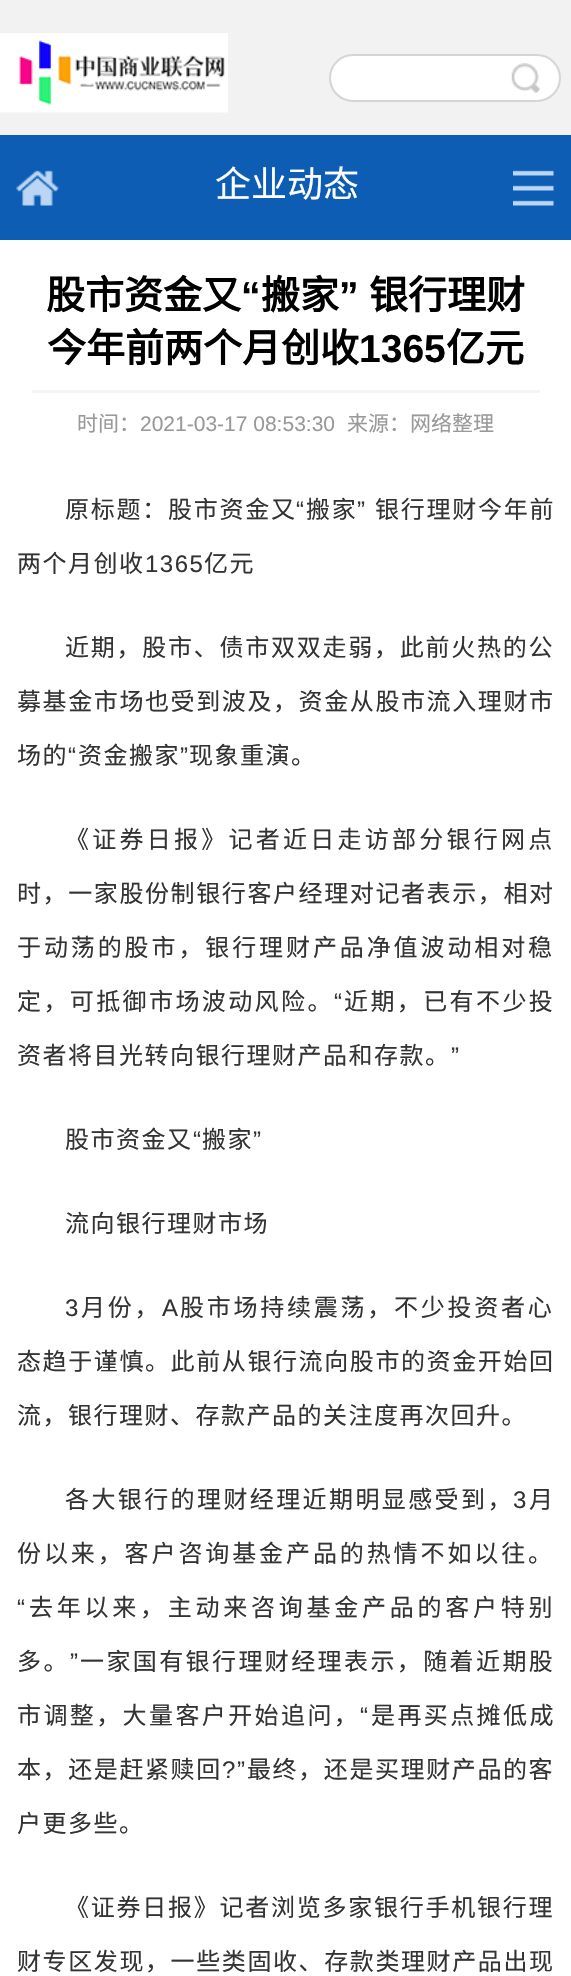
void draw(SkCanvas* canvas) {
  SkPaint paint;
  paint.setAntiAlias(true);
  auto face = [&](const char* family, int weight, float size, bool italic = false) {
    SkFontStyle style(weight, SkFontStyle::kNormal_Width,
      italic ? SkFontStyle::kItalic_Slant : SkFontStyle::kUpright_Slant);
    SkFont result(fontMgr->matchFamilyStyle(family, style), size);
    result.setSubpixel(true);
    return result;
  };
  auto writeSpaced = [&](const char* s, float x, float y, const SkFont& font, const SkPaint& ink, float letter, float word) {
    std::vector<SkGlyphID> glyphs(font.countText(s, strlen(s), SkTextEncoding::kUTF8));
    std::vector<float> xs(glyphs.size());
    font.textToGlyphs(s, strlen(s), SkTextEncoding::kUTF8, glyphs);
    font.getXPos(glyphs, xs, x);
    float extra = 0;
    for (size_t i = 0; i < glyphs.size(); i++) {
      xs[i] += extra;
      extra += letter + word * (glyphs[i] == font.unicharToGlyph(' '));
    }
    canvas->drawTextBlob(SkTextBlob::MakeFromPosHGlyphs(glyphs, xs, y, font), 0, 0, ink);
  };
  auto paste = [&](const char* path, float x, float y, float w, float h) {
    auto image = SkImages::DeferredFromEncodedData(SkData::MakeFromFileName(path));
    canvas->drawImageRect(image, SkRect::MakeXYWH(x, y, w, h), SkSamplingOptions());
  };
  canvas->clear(0xffffffff);
  paint.setColor(0xfff2f2f2);
  canvas->drawRect(SkRect::MakeXYWH(0, 0, 571, 135), paint);
  paste("img/1.png", 0, 33, 228, 80);
  paint.setColor(0xffffffff);
  canvas->drawRoundRect(SkRect::MakeXYWH(330, 55, 230, 46), 23, 23, paint);
  paint.setStroke(true);
  paint.setStrokeWidth(2);
  paint.setColor(0xffd6d5d5);
  canvas->drawRoundRect(SkRect::MakeXYWH(330, 55, 230, 46), 23, 23, paint);
  paste("img/2.png", 511, 63, 29, 31);
  paint.setStroke(false);
  paint.setColor(0xff0d5db4);
  canvas->drawRect(SkRect::MakeXYWH(0, 135, 571, 105), paint);
  paste("img/3.png", 16, 170, 43, 36);
  paste("img/4.png", 513, 170, 41, 36);
  paint.setColor(0xfff5f5f5);
  canvas->drawRect(SkRect::MakeXYWH(32, 390, 508, 3), paint);
  auto f0 = face("Noto Sans CJK SC", 400, 36);
  paint.setColor(0xffffffff);
  canvas->drawString("企业动态", 215, 197, f0, paint);
  auto f1 = face("Noto Sans CJK SC", 700, 39);
  paint.setColor(0xff000000);
  canvas->drawString("股市资金又", 46, 309, f1, paint);
  auto f2 = face("Liberation Sans", 700, 39);
  canvas->drawString("“", 241, 309, f2, paint);
  canvas->drawString("搬家", 261, 309, f1, paint);
  canvas->drawString("”", 339, 309, f2, paint);
  canvas->drawString("银行理财", 369, 309, f1, paint);
  canvas->drawString("今年前两个月创收", 47, 362, f1, paint);
  canvas->drawString("1365", 359, 362, f2, paint);
  canvas->drawString("亿元", 446, 362, f1, paint);
  auto f3 = face("Noto Sans CJK SC", 400, 21);
  paint.setColor(0xff999999);
  canvas->drawString("时间：", 77, 431, f3, paint);
  auto f4 = face("Liberation Sans", 400, 21);
  canvas->drawString("2021-03-17 08:53:30", 140, 431, f4, paint);
  canvas->drawString("来源：网络整理", 347, 431, f3, paint);
  auto f5 = face("Noto Sans CJK SC", 400, 24);
  paint.setColor(0xff333333);
  writeSpaced("原标题：股市资金又", 65, 518, f5, paint, 1.75f, 0);
  auto f6 = face("Liberation Sans", 400, 24);
  writeSpaced("“", 296, 518, f6, paint, 1.75f, 0);
  writeSpaced("搬家", 306, 518, f5, paint, 1.75f, 0);
  writeSpaced("”", 357, 518, f6, paint, 1.75f, 0);
  writeSpaced("银行理财今年前", 375, 518, f5, paint, 1.75f, 0);
  writeSpaced("两个月创收", 17, 572, f5, paint, 1.5f, 0);
  writeSpaced("1365", 145, 572, f6, paint, 1.5f, 0);
  writeSpaced("亿元", 204, 572, f5, paint, 1.5f, 0);
  writeSpaced("近期，股市、债市双双走弱，此前火热的公", 65, 656, f5, paint, 1.75f, 0);
  writeSpaced("募基金市场也受到波及，资金从股市流入理财市", 17, 710, f5, paint, 1.6f, 0);
  writeSpaced("场的", 17, 764, f5, paint, 1.5f, 0);
  writeSpaced("“", 68, 764, f6, paint, 1.5f, 0);
  writeSpaced("资金搬家", 78, 764, f5, paint, 1.5f, 0);
  writeSpaced("”", 180, 764, f6, paint, 1.5f, 0);
  writeSpaced("现象重演。", 189, 764, f5, paint, 1.5f, 0);
  writeSpaced("《证券日报》记者近日走访部分银行网点", 65, 848, f5, paint, 3.25f, 0);
  writeSpaced("时，一家股份制银行客户经理对记者表示，相对", 17, 902, f5, paint, 1.6f, 0);
  writeSpaced("于动荡的股市，银行理财产品净值波动相对稳", 17, 956, f5, paint, 2.9f, 0);
  writeSpaced("定，可抵御市场波动风险。", 17, 1010, f5, paint, 2.4f, 0);
  writeSpaced("“", 334, 1010, f6, paint, 2.4f, 0);
  writeSpaced("近期，已有不少投", 344, 1010, f5, paint, 2.4f, 0);
  writeSpaced("资者将目光转向银行理财产品和存款。", 17, 1064, f5, paint, 1.5f, 0);
  writeSpaced("”", 451, 1064, f6, paint, 1.5f, 0);
  writeSpaced("股市资金又", 65, 1148, f5, paint, 1.5f, 0);
  writeSpaced("“", 193, 1148, f6, paint, 1.5f, 0);
  writeSpaced("搬家", 202, 1148, f5, paint, 1.5f, 0);
  writeSpaced("”", 253, 1148, f6, paint, 1.5f, 0);
  writeSpaced("流向银行理财市场", 65, 1232, f5, paint, 1.5f, 0);
  writeSpaced("3", 65, 1316, f6, paint, 2.75f, 0);
  writeSpaced("月份，", 81, 1316, f5, paint, 2.75f, 0);
  writeSpaced("A", 162, 1316, f6, paint, 2.75f, 0);
  writeSpaced("股市场持续震荡，不少投资者心", 180, 1316, f5, paint, 2.75f, 0);
  writeSpaced("态趋于谨慎。此前从银行流向股市的资金开始回", 17, 1370, f5, paint, 1.6f, 0);
  writeSpaced("流，银行理财、存款产品的关注度再次回升。", 17, 1424, f5, paint, 1.5f, 0);
  writeSpaced("各大银行的理财经理近期明显感受到，", 65, 1508, f5, paint, 2.4f, 0);
  writeSpaced("3", 513, 1508, f6, paint, 2.4f, 0);
  writeSpaced("月", 529, 1508, f5, paint, 2.4f, 0);
  writeSpaced("份以来，客户咨询基金产品的热情不如以往。", 17, 1562, f5, paint, 2.9f, 0);
  writeSpaced("“", 17, 1616, f6, paint, 3.75f, 0);
  writeSpaced("去年以来，主动来咨询基金产品的客户特别", 29, 1616, f5, paint, 3.75f, 0);
  writeSpaced("多。", 17, 1670, f5, paint, 2.4f, 0);
  writeSpaced("”", 70, 1670, f6, paint, 2.4f, 0);
  writeSpaced("一家国有银行理财经理表示，随着近期股", 80, 1670, f5, paint, 2.4f, 0);
  writeSpaced("市调整，大量客户开始追问，", 17, 1724, f5, paint, 2.4f, 0);
  writeSpaced("“", 360, 1724, f6, paint, 2.4f, 0);
  writeSpaced("是再买点摊低成", 371, 1724, f5, paint, 2.4f, 0);
  writeSpaced("本，还是赶紧赎回", 17, 1778, f5, paint, 1.6f, 0);
  writeSpaced("?”", 222, 1778, f6, paint, 1.6f, 0);
  writeSpaced("最终，还是买理财产品的客", 247, 1778, f5, paint, 1.6f, 0);
  writeSpaced("户更多些。", 17, 1832, f5, paint, 1.5f, 0);
  writeSpaced("《证券日报》记者浏览多家银行手机银行理", 65, 1916, f5, paint, 1.75f, 0);
  writeSpaced("财专区发现，一些类固收、存款类理财产品出现", 17, 1970, f5, paint, 1.6f, 0);
}
